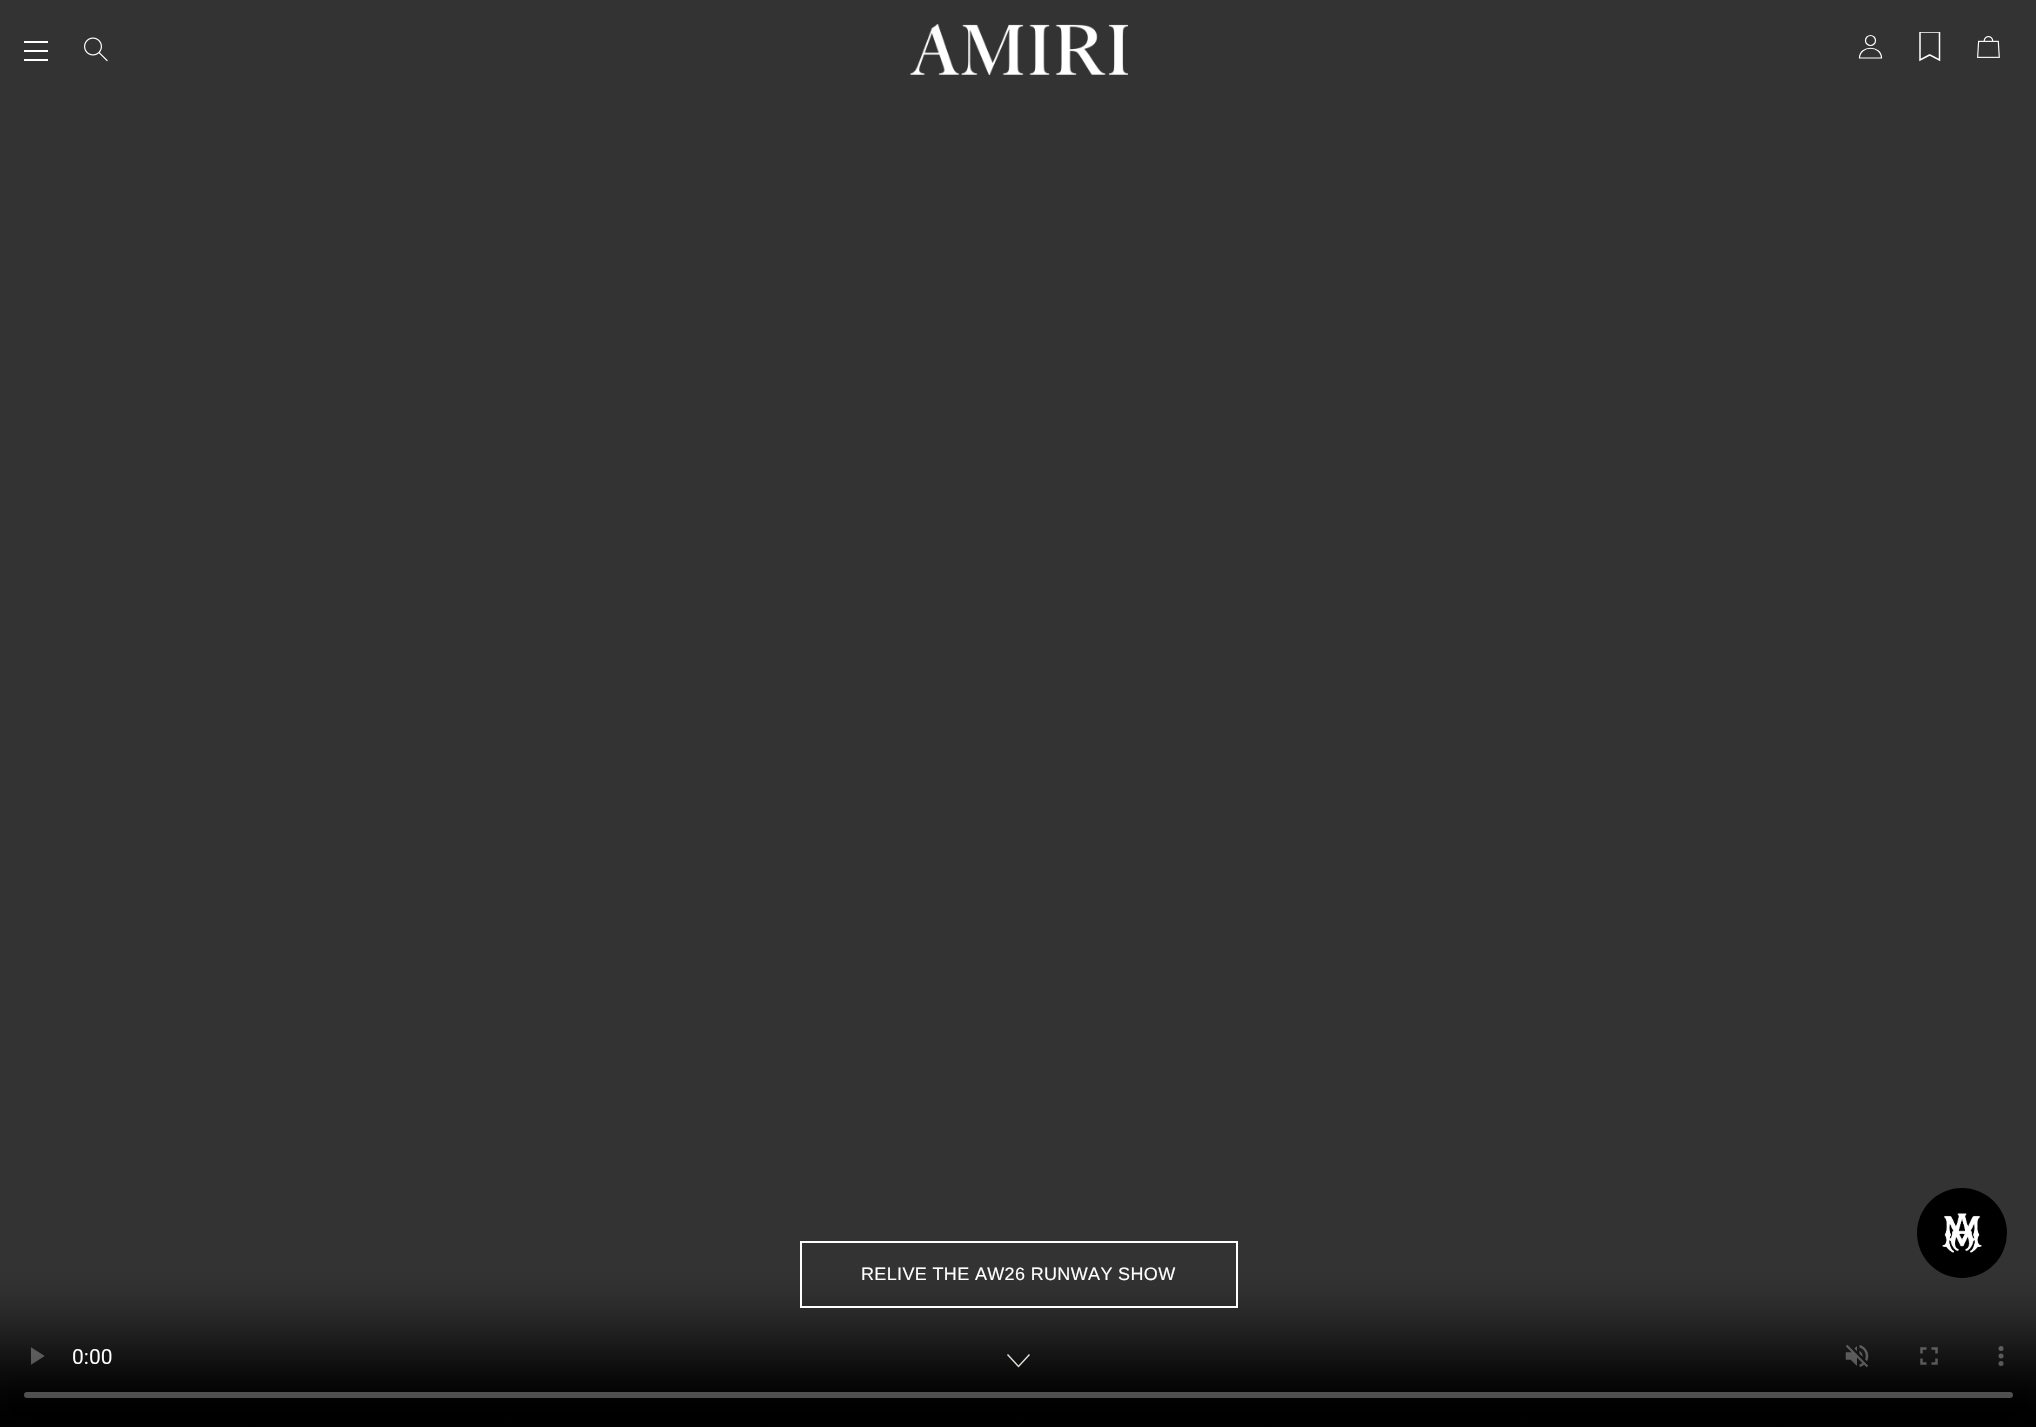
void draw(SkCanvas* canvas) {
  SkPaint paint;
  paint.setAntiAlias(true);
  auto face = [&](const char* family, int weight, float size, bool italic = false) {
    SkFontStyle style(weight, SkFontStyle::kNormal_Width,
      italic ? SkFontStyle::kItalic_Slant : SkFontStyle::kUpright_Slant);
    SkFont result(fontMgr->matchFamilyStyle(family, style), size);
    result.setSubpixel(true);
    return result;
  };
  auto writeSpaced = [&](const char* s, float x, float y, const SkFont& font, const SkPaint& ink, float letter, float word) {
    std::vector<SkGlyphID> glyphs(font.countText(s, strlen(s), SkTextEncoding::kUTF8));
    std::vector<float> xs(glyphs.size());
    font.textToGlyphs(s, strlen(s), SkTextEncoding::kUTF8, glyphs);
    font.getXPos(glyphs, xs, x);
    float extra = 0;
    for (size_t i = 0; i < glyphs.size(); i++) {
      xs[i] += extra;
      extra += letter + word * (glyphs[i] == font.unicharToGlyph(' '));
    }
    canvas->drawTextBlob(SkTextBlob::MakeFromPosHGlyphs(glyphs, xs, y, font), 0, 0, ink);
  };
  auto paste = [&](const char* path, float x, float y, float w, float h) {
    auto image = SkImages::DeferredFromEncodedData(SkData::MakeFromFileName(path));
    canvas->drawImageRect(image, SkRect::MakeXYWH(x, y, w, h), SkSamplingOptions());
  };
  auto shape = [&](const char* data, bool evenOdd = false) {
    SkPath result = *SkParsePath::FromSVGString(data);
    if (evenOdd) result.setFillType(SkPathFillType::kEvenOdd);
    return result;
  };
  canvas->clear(0xffffffff);
  paste("img/4.png", 0, 0, 2036, 1427);
  {
    const struct { float x, y, w, h; SkColor color; } items[] = {
      {24, 41, 24, 2, 0xffffffff},
      {24, 50, 24, 2, 0xffffffff},
      {24, 59, 24, 2, 0xffffffff},
    };
    for (auto [x, y, w, h, color] : items) {
      paint.setColor(color);
      canvas->drawRect(SkRect::MakeXYWH(x, y, w, h), paint);
    }
  }
  paste("img/1.png", 84, 37, 24, 25);
  paste("img/2.png", 910, 24, 218, 51);
  paint.setStroke(true);
  paint.setStrokeWidth(1.2f);
  canvas->drawCircle(1870.5f, 40.5f, 5, paint);
  canvas->drawPath(shape("M1881.5 58C1881.5 45 1859.5 45 1859.5 58Z"), paint);
  canvas->save();
  canvas->clipRect(SkRect::MakeXYWH(1919, 32, 24, 30));
  paint.setStrokeWidth(1.5f);
  canvas->drawPath(shape("M1929.5 55L1920 60V32H1939.5V60L1930 55Z"), paint);
  canvas->restore();
  paste("img/3.png", 1977, 36, 23, 22);
  paint.setStrokeWidth(2);
  canvas->drawRect(SkRect::MakeXYWH(801, 1242, 436, 65), paint);
  paint.setStrokeWidth(1.5f);
  paint.setColor(0xffddddd5);
  canvas->drawPath(shape("M1007.5 1354.5L1018.5 1366.5L1029.5 1354.5"), paint);
  paint.setStroke(false);
  paint.setColor(0xff000000);
  canvas->drawCircle(1962, 1233, 45, paint);
  paste("img/5.png", 1942, 1213, 40, 40);
  auto f0 = face("Liberation Sans", 400, 18);
  paint.setColor(0xffffffff);
  writeSpaced("RELIVE THE AW26 RUNWAY SHOW", 861, 1280, f0, paint, 0.35f, 0);
}
